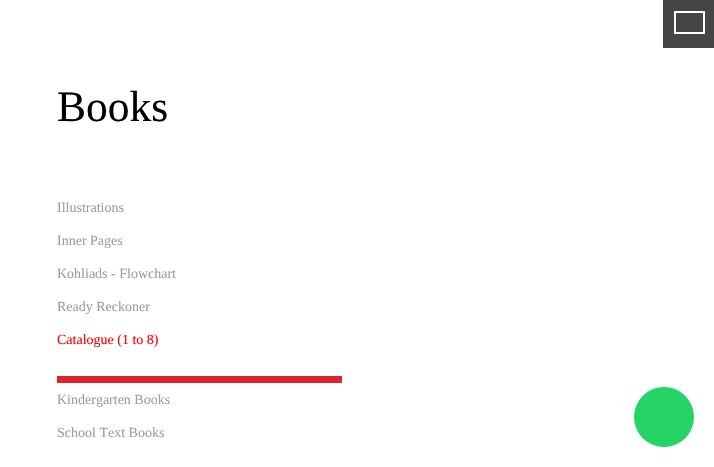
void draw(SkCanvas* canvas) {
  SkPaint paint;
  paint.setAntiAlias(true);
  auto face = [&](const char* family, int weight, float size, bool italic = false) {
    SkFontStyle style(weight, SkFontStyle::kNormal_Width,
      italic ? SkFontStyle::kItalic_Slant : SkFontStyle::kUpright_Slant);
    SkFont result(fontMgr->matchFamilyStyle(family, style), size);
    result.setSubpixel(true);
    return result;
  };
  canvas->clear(0xffffffff);
  paint.setColor(0xff454545);
  canvas->drawRect(SkRect::MakeXYWH(663, 0, 51, 48), paint);
  paint.setStroke(true);
  paint.setStrokeWidth(2);
  paint.setColor(0xffffffff);
  canvas->drawRect(SkRect::MakeXYWH(675, 12, 29, 21), paint);
  paint.setStroke(false);
  paint.setColor(0xffdb242d);
  canvas->drawRect(SkRect::MakeXYWH(57, 376, 285, 7), paint);
  paint.setColor(0xff25d366);
  canvas->drawCircle(664, 417, 30, paint);
  auto f0 = face("Liberation Serif", 400, 43.5f);
  paint.setColor(0xff000000);
  canvas->drawString("Books", 57, 121, f0, paint);
  auto f1 = face("Liberation Serif", 400, 14);
  paint.setColor(0xff9d9d9d);
  {
    const struct { const char* s; float x, y; } items[] = {
      {"Illustrations", 57, 212},
      {"Inner Pages", 57, 245},
      {"Kohliads - Flowchart", 57, 278},
      {"Ready Reckoner", 57, 311},
    };
    for (auto [s, x, y] : items) {
      canvas->drawString(s, x, y, f1, paint);
    }
  }
  paint.setColor(0xffff0000);
  canvas->drawString("Catalogue (1 to 8)", 57, 344, f1, paint);
  paint.setColor(0xff9d9d9d);
  canvas->drawString("Kindergarten Books", 57, 404, f1, paint);
  canvas->drawString("School Text Books", 57, 437, f1, paint);
}
